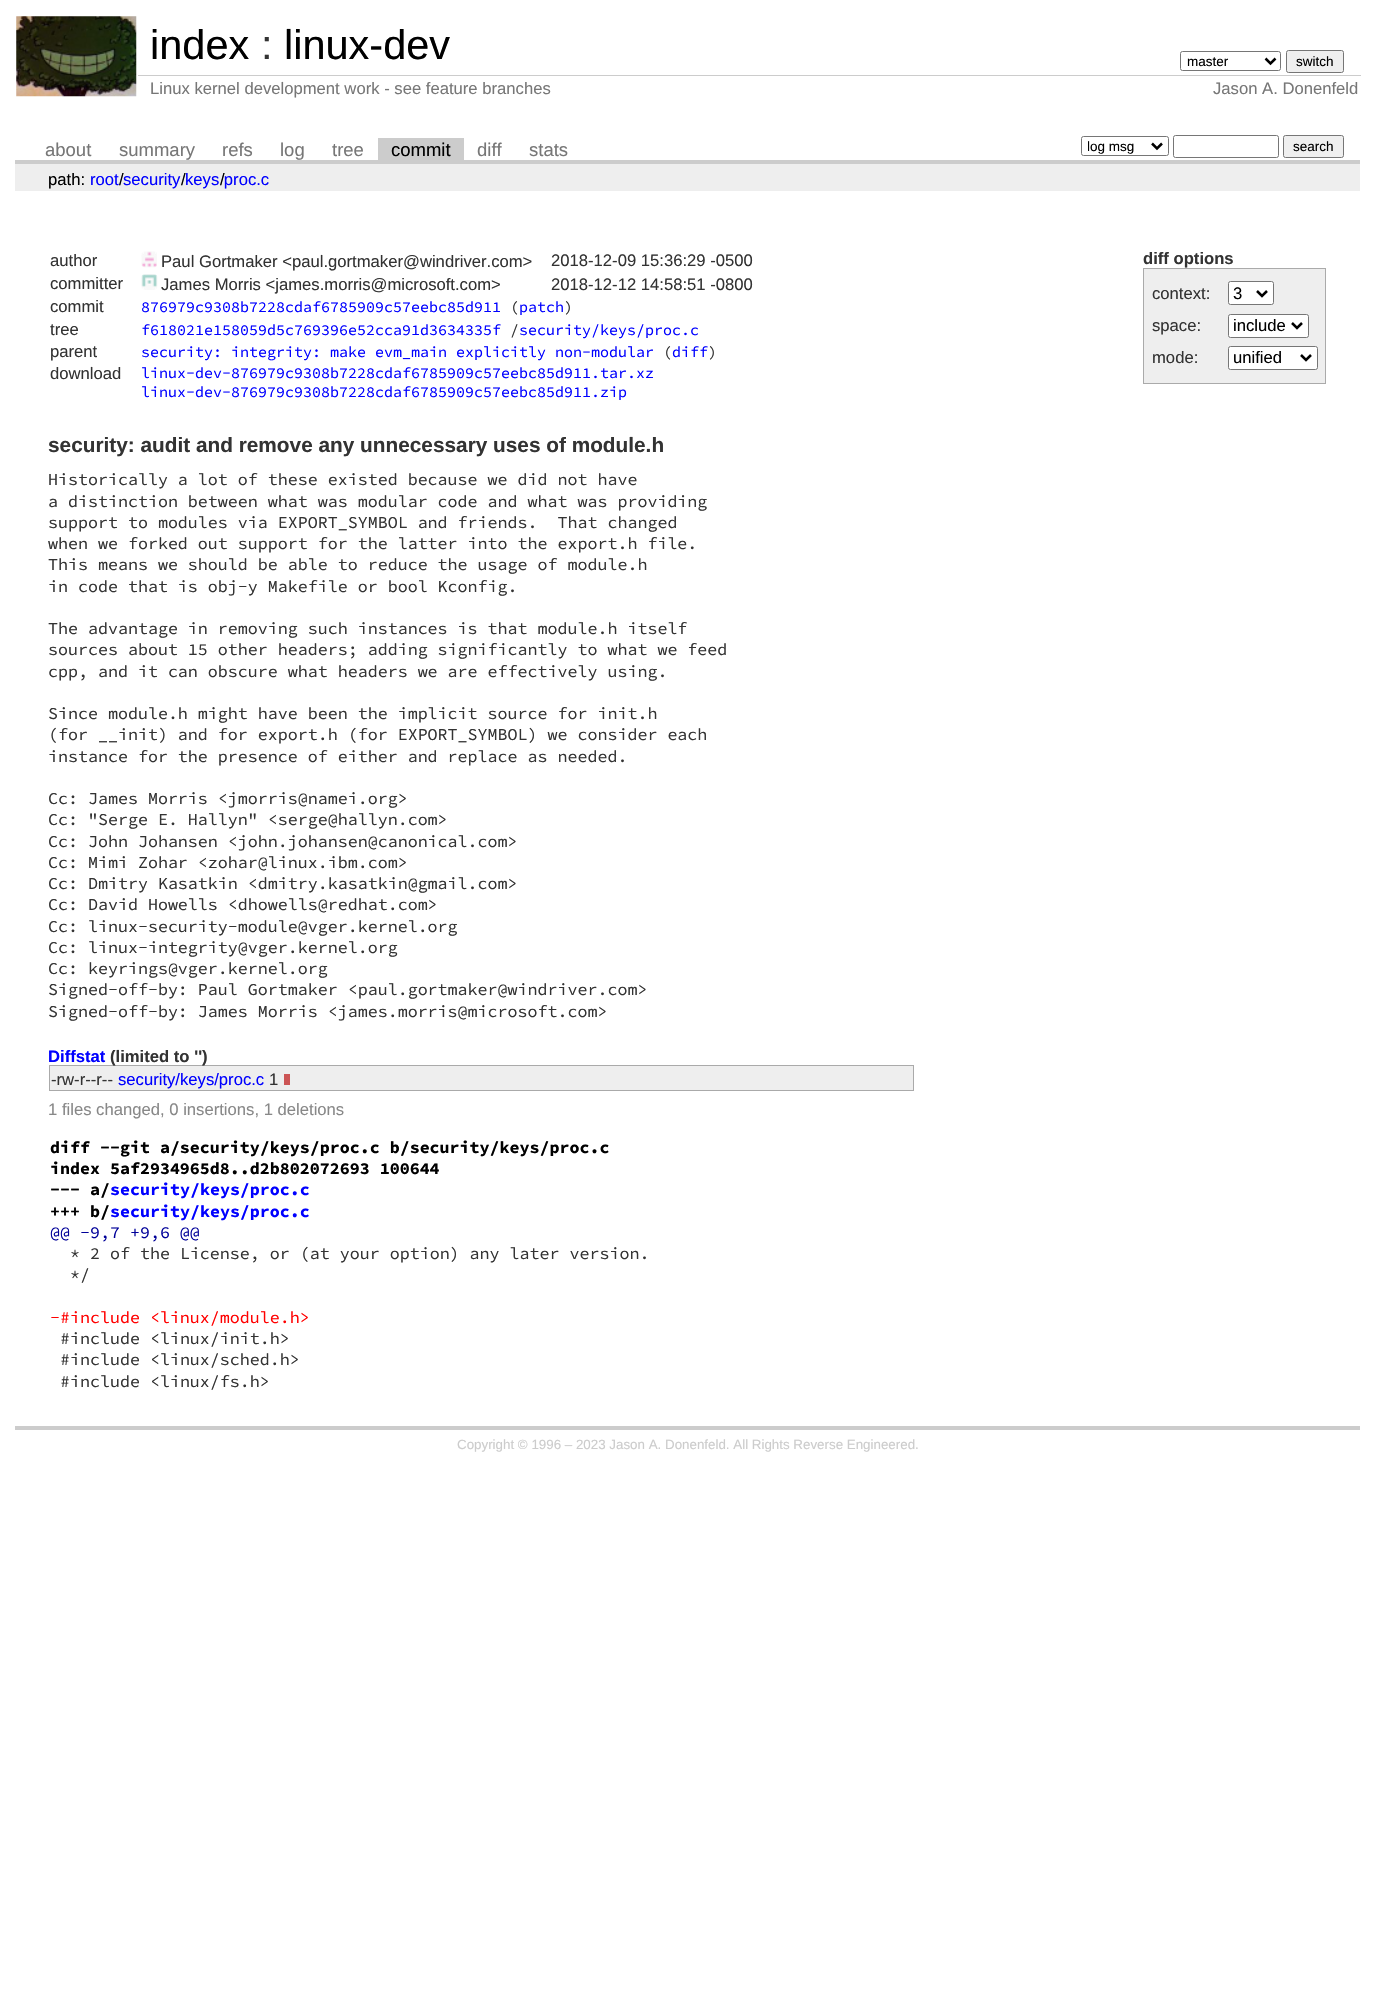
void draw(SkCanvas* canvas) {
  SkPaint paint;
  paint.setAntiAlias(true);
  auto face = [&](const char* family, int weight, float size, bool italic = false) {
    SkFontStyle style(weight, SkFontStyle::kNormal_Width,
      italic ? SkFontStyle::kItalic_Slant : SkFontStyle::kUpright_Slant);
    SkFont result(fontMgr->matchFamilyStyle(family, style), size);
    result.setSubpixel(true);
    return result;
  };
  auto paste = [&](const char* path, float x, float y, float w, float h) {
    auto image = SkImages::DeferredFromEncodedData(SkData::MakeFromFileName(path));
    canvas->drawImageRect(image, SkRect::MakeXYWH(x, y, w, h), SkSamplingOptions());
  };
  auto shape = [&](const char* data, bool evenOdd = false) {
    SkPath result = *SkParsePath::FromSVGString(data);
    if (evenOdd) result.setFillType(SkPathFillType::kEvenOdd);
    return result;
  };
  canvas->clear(0xffffffff);
  paste("img/1.png", 16, 16, 121, 81);
  paint.setStroke(true);
  paint.setStrokeWidth(1);
  paint.setColor(0xff767676);
  canvas->drawRoundRect(SkRect::MakeXYWH(1180.5f, 51.5f, 100, 19), 2, 2, paint);
  paint.setStrokeWidth(2.5f);
  paint.setColor(0xff000000);
  canvas->drawPath(shape("M1265.5 58.5L1270.5 63.5L1275.5 58.5"), paint);
  paint.setStroke(false);
  paint.setColor(0xffefefef);
  canvas->drawRoundRect(SkRect::MakeXYWH(1286.5f, 50.5f, 57, 22), 2, 2, paint);
  paint.setStroke(true);
  paint.setStrokeWidth(1);
  paint.setColor(0xff767676);
  canvas->drawRoundRect(SkRect::MakeXYWH(1286.5f, 50.5f, 57, 22), 2, 2, paint);
  paint.setStroke(false);
  {
    const struct { float x, y, w, h; SkColor color; } items[] = {
      {138, 75, 1223, 1, 0xffcccccc},
      {15, 160, 1345, 4, 0xffcccccc},
      {378, 138, 86, 22, 0xffcccccc},
    };
    for (auto [x, y, w, h, color] : items) {
      paint.setColor(color);
      canvas->drawRect(SkRect::MakeXYWH(x, y, w, h), paint);
    }
  }
  paint.setStroke(true);
  paint.setColor(0xff767676);
  canvas->drawRoundRect(SkRect::MakeXYWH(1081.5f, 136.5f, 87, 19), 2, 2, paint);
  paint.setStrokeWidth(2.5f);
  paint.setColor(0xff000000);
  canvas->drawPath(shape("M1152 143.5L1157 148.5L1162 143.5"), paint);
  paint.setStrokeWidth(1);
  paint.setColor(0xff767676);
  canvas->drawRoundRect(SkRect::MakeXYWH(1173.5f, 135.5f, 105, 22), 2, 2, paint);
  paint.setStroke(false);
  paint.setColor(0xffefefef);
  canvas->drawRoundRect(SkRect::MakeXYWH(1283.5f, 135.5f, 60, 22), 2, 2, paint);
  paint.setStroke(true);
  paint.setColor(0xff767676);
  canvas->drawRoundRect(SkRect::MakeXYWH(1283.5f, 135.5f, 60, 22), 2, 2, paint);
  paint.setStroke(false);
  paint.setColor(0xffeeeeee);
  canvas->drawRect(SkRect::MakeXYWH(15, 164, 1345, 27), paint);
  paint.setColor(0xffcccccc);
  canvas->drawRect(SkRect::MakeXYWH(15, 1426, 1345, 4), paint);
  paste("img/2.png", 141, 251, 16, 17);
  paste("img/3.png", 141, 274, 17, 16);
  {
    const struct { float x, y, w, h; SkColor color; } items[] = {
      {1144, 269, 181, 114, 0xffeeeeee},
      {1143, 268, 183, 1, 0xffaaaaaa},
      {1325, 268, 1, 116, 0xffaaaaaa},
      {1143, 383, 183, 1, 0xffaaaaaa},
      {1143, 268, 1, 116, 0xffaaaaaa},
    };
    for (auto [x, y, w, h, color] : items) {
      paint.setColor(color);
      canvas->drawRect(SkRect::MakeXYWH(x, y, w, h), paint);
    }
  }
  paint.setColor(0xffffffff);
  canvas->drawRoundRect(SkRect::MakeXYWH(1228.5f, 281.5f, 45, 23), 2, 2, paint);
  paint.setStroke(true);
  paint.setColor(0xff767676);
  canvas->drawRoundRect(SkRect::MakeXYWH(1228.5f, 281.5f, 45, 23), 2, 2, paint);
  paint.setStrokeWidth(2.5f);
  paint.setColor(0xff000000);
  canvas->drawPath(shape("M1257 291L1262 296L1267 291"), paint);
  paint.setStroke(false);
  paint.setColor(0xffffffff);
  canvas->drawRoundRect(SkRect::MakeXYWH(1228.5f, 314.5f, 80, 23), 2, 2, paint);
  paint.setStroke(true);
  paint.setStrokeWidth(1);
  paint.setColor(0xff767676);
  canvas->drawRoundRect(SkRect::MakeXYWH(1228.5f, 314.5f, 80, 23), 2, 2, paint);
  paint.setStrokeWidth(2.5f);
  paint.setColor(0xff000000);
  canvas->drawPath(shape("M1292 323L1297 328L1302 323"), paint);
  paint.setStroke(false);
  paint.setColor(0xffffffff);
  canvas->drawRoundRect(SkRect::MakeXYWH(1228.5f, 346.5f, 89, 23), 2, 2, paint);
  paint.setStroke(true);
  paint.setStrokeWidth(1);
  paint.setColor(0xff767676);
  canvas->drawRoundRect(SkRect::MakeXYWH(1228.5f, 346.5f, 89, 23), 2, 2, paint);
  paint.setStrokeWidth(2.5f);
  paint.setColor(0xff000000);
  canvas->drawPath(shape("M1301 355L1306 360L1311 355"), paint);
  paint.setStroke(false);
  {
    const struct { float x, y, w, h; SkColor color; } items[] = {
      {50, 1066, 863, 24, 0xffeeeeee},
      {49, 1065, 865, 1, 0xffaaaaaa},
      {913, 1065, 1, 26, 0xffaaaaaa},
      {49, 1090, 865, 1, 0xffaaaaaa},
      {49, 1065, 1, 26, 0xffaaaaaa},
      {284, 1074, 6, 11, 0xffcc5555},
    };
    for (auto [x, y, w, h, color] : items) {
      paint.setColor(color);
      canvas->drawRect(SkRect::MakeXYWH(x, y, w, h), paint);
    }
  }
  auto f0 = face("Liberation Sans", 400, 41.5f);
  paint.setColor(0xff000000);
  canvas->drawString("index", 150, 59, f0, paint);
  paint.setColor(0xff333333);
  canvas->drawString(":", 261, 59, f0, paint);
  paint.setColor(0xff000000);
  canvas->drawString("linux-dev", 284, 59, f0, paint);
  auto f1 = face("Liberation Sans", 400, 13.5f);
  canvas->drawString("master", 1187, 66, f1, paint);
  canvas->drawString("switch", 1296, 66, f1, paint);
  auto f2 = face("Liberation Sans", 400, 16.65f);
  paint.setColor(0xff777777);
  canvas->drawString("Linux kernel development work - see feature branches", 150, 94, f2, paint);
  canvas->drawString("Jason A. Donenfeld", 1213, 94, f2, paint);
  auto f3 = face("Liberation Sans", 400, 18.5f);
  {
    const struct { const char* s; float x, y; } items[] = {
      {"about", 45, 156},
      {"summary", 119, 156},
      {"refs", 222, 156},
      {"log", 280, 156},
      {"tree", 332, 156},
    };
    for (auto [s, x, y] : items) {
      canvas->drawString(s, x, y, f3, paint);
    }
  }
  paint.setColor(0xff000000);
  canvas->drawString("commit", 391, 156, f3, paint);
  paint.setColor(0xff777777);
  canvas->drawString("diff", 477, 156, f3, paint);
  canvas->drawString("stats", 529, 156, f3, paint);
  canvas->save();
  canvas->clipRect(SkRect::MakeXYWH(1088, 138, 60, 17));
  paint.setColor(0xff000000);
  canvas->drawString("log msg", 1087, 151, f1, paint);
  canvas->restore();
  canvas->drawString("search", 1293, 151, f1, paint);
  canvas->drawString("path:", 48, 185, f2, paint);
  paint.setColor(0xff0000ff);
  canvas->drawString("root", 90, 185, f2, paint);
  paint.setColor(0xff000000);
  canvas->drawString("/", 119, 185, f2, paint);
  paint.setColor(0xff0000ff);
  canvas->drawString("security keys proc.c", 123, 185, f2, paint);
  paint.setColor(0xff000000);
  canvas->drawString("/", 181, 185, f2, paint);
  canvas->drawString("/", 220, 185, f2, paint);
  paint.setColor(0xff333333);
  {
    const struct { const char* s; float x, y; } items[] = {
      {"author", 50, 266},
      {"Paul Gortmaker <paul.gortmaker@windriver.com>", 161, 267},
      {"2018-12-09 15:36:29 -0500", 551, 266},
      {"committer", 50, 289},
      {"James Morris <james.morris@microsoft.com>", 161, 290},
      {"2018-12-12 14:58:51 -0800", 551, 290},
      {"commit", 50, 312},
    };
    for (auto [s, x, y] : items) {
      canvas->drawString(s, x, y, f2, paint);
    }
  }
  auto f4 = face("Source Code Pro", 400, 15);
  paint.setColor(0xff0000ff);
  canvas->drawString("876979c9308b7228cdaf6785909c57eebc85d911", 141, 312, f4, paint);
  paint.setColor(0xff333333);
  canvas->drawString("(", 510, 312, f4, paint);
  paint.setColor(0xff0000ff);
  canvas->drawString("patch", 519, 312, f4, paint);
  paint.setColor(0xff333333);
  canvas->drawString(")", 564, 312, f4, paint);
  canvas->drawString("tree", 50, 335, f2, paint);
  paint.setColor(0xff0000ff);
  canvas->drawString("f618021e158059d5c769396e52cca91d3634335f", 141, 335, f4, paint);
  paint.setColor(0xff333333);
  canvas->drawString("/", 510, 335, f4, paint);
  paint.setColor(0xff0000ff);
  canvas->drawString("security/keys/proc.c", 519, 335, f4, paint);
  paint.setColor(0xff333333);
  canvas->drawString("parent", 50, 357, f2, paint);
  paint.setColor(0xff0000ff);
  canvas->drawString("security: integrity: make evm_main explicitly non-modular", 141, 357, f4, paint);
  paint.setColor(0xff333333);
  canvas->drawString("(", 663, 357, f4, paint);
  paint.setColor(0xff0000ff);
  canvas->drawString("diff", 672, 357, f4, paint);
  paint.setColor(0xff333333);
  canvas->drawString(")", 708, 357, f4, paint);
  canvas->drawString("download", 50, 379, f2, paint);
  paint.setColor(0xff0000ff);
  canvas->drawString("linux-dev-876979c9308b7228cdaf6785909c57eebc85d911.tar.xz", 141, 378, f4, paint);
  canvas->drawString("linux-dev-876979c9308b7228cdaf6785909c57eebc85d911.zip", 141, 397, f4, paint);
  auto f5 = face("Liberation Sans", 700, 16.65f);
  paint.setColor(0xff333333);
  canvas->drawString("diff options", 1143, 264, f5, paint);
  canvas->drawString("context:", 1152, 299, f2, paint);
  paint.setColor(0xff000000);
  canvas->drawString("3", 1233, 299, f2, paint);
  paint.setColor(0xff333333);
  canvas->drawString("space:", 1152, 331, f2, paint);
  paint.setColor(0xff000000);
  canvas->drawString("include", 1233, 331, f2, paint);
  paint.setColor(0xff333333);
  canvas->drawString("mode:", 1152, 363, f2, paint);
  paint.setColor(0xff000000);
  canvas->drawString("unified", 1233, 363, f2, paint);
  auto f6 = face("Liberation Sans", 700, 20.8f);
  paint.setColor(0xff333333);
  canvas->drawString("security: audit and remove any unnecessary uses of module.h", 48, 452, f6, paint);
  auto f7 = face("Source Code Pro", 400, 16.65f);
  {
    const struct { const char* s; float x, y; } items[] = {
      {"Historically a lot of these existed because we did not have", 48, 485},
      {"a distinction between what was modular code and what was providing", 48, 507},
      {"support to modules via EXPORT_SYMBOL and friends.  That changed", 48, 528},
      {"when we forked out support for the latter into the export.h file.", 48, 549},
      {"This means we should be able to reduce the usage of module.h", 48, 570},
      {"in code that is obj-y Makefile or bool Kconfig.", 48, 592},
      {"The advantage in removing such instances is that module.h itself", 48, 634},
      {"sources about 15 other headers; adding significantly to what we feed", 48, 655},
      {"cpp, and it can obscure what headers we are effectively using.", 48, 677},
      {"Since module.h might have been the implicit source for init.h", 48, 719},
      {"(for __init) and for export.h (for EXPORT_SYMBOL) we consider each", 48, 740},
      {"instance for the presence of either and replace as needed.", 48, 762},
      {"Cc: James Morris <jmorris@namei.org>", 48, 804},
      {"Cc: \"Serge E. Hallyn\" <serge@hallyn.com>", 48, 825},
      {"Cc: John Johansen <john.johansen@canonical.com>", 48, 847},
      {"Cc: Mimi Zohar <zohar@linux.ibm.com>", 48, 868},
      {"Cc: Dmitry Kasatkin <dmitry.kasatkin@gmail.com>", 48, 889},
      {"Cc: David Howells <dhowells@redhat.com>", 48, 910},
      {"Cc: linux-security-module@vger.kernel.org", 48, 932},
      {"Cc: linux-integrity@vger.kernel.org", 48, 953},
      {"Cc: keyrings@vger.kernel.org", 48, 974},
      {"Signed-off-by: Paul Gortmaker <paul.gortmaker@windriver.com>", 48, 995},
      {"Signed-off-by: James Morris <james.morris@microsoft.com>", 48, 1017},
    };
    for (auto [s, x, y] : items) {
      canvas->drawString(s, x, y, f7, paint);
    }
  }
  paint.setColor(0xff0000ff);
  canvas->drawString("Diffstat", 48, 1062, f5, paint);
  paint.setColor(0xff333333);
  canvas->drawString("(limited to '')", 110, 1062, f5, paint);
  canvas->drawString("-rw-r--r--", 51, 1085, f2, paint);
  paint.setColor(0xff0000ff);
  canvas->drawString("security/keys/proc.c", 118, 1085, f2, paint);
  paint.setColor(0xff333333);
  canvas->drawString("1", 269, 1085, f2, paint);
  paint.setColor(0xff888888);
  canvas->drawString("1 files changed, 0 insertions, 1 deletions", 48, 1115, f2, paint);
  auto f8 = face("Source Code Pro", 700, 16.65f);
  paint.setColor(0xff000000);
  {
    const struct { const char* s; float x, y; } items[] = {
      {"diff --git a/security/keys/proc.c b/security/keys/proc.c", 50, 1153},
      {"index 5af2934965d8..d2b802072693 100644", 50, 1174},
      {"--- a/", 50, 1195},
    };
    for (auto [s, x, y] : items) {
      canvas->drawString(s, x, y, f8, paint);
    }
  }
  paint.setColor(0xff0000ff);
  canvas->drawString("security/keys/proc.c", 110, 1195, f8, paint);
  paint.setColor(0xff000000);
  canvas->drawString("+++ b/", 50, 1217, f8, paint);
  paint.setColor(0xff0000ff);
  canvas->drawString("security/keys/proc.c", 110, 1217, f8, paint);
  paint.setColor(0xff000099);
  canvas->drawString("@@ -9,7 +9,6 @@", 50, 1238, f7, paint);
  paint.setColor(0xff333333);
  canvas->drawString("* 2 of the License, or (at your option) any later version.", 70, 1259, f7, paint);
  canvas->drawString("*/", 70, 1280, f7, paint);
  paint.setColor(0xffff0000);
  canvas->drawString("-#include <linux/module.h>", 50, 1323, f7, paint);
  paint.setColor(0xff333333);
  {
    const struct { const char* s; float x, y; } items[] = {
      {"#include <linux/init.h>", 60, 1344},
      {"#include <linux/sched.h>", 60, 1365},
      {"#include <linux/fs.h>", 60, 1387},
    };
    for (auto [s, x, y] : items) {
      canvas->drawString(s, x, y, f7, paint);
    }
  }
  auto f9 = face("Liberation Sans", 400, 13.35f);
  paint.setColor(0xffcccccc);
  canvas->drawString("Copyright © 1996 – 2023 Jason A. Donenfeld. All Rights Reverse Engineered.", 457, 1449, f9, paint);
}
